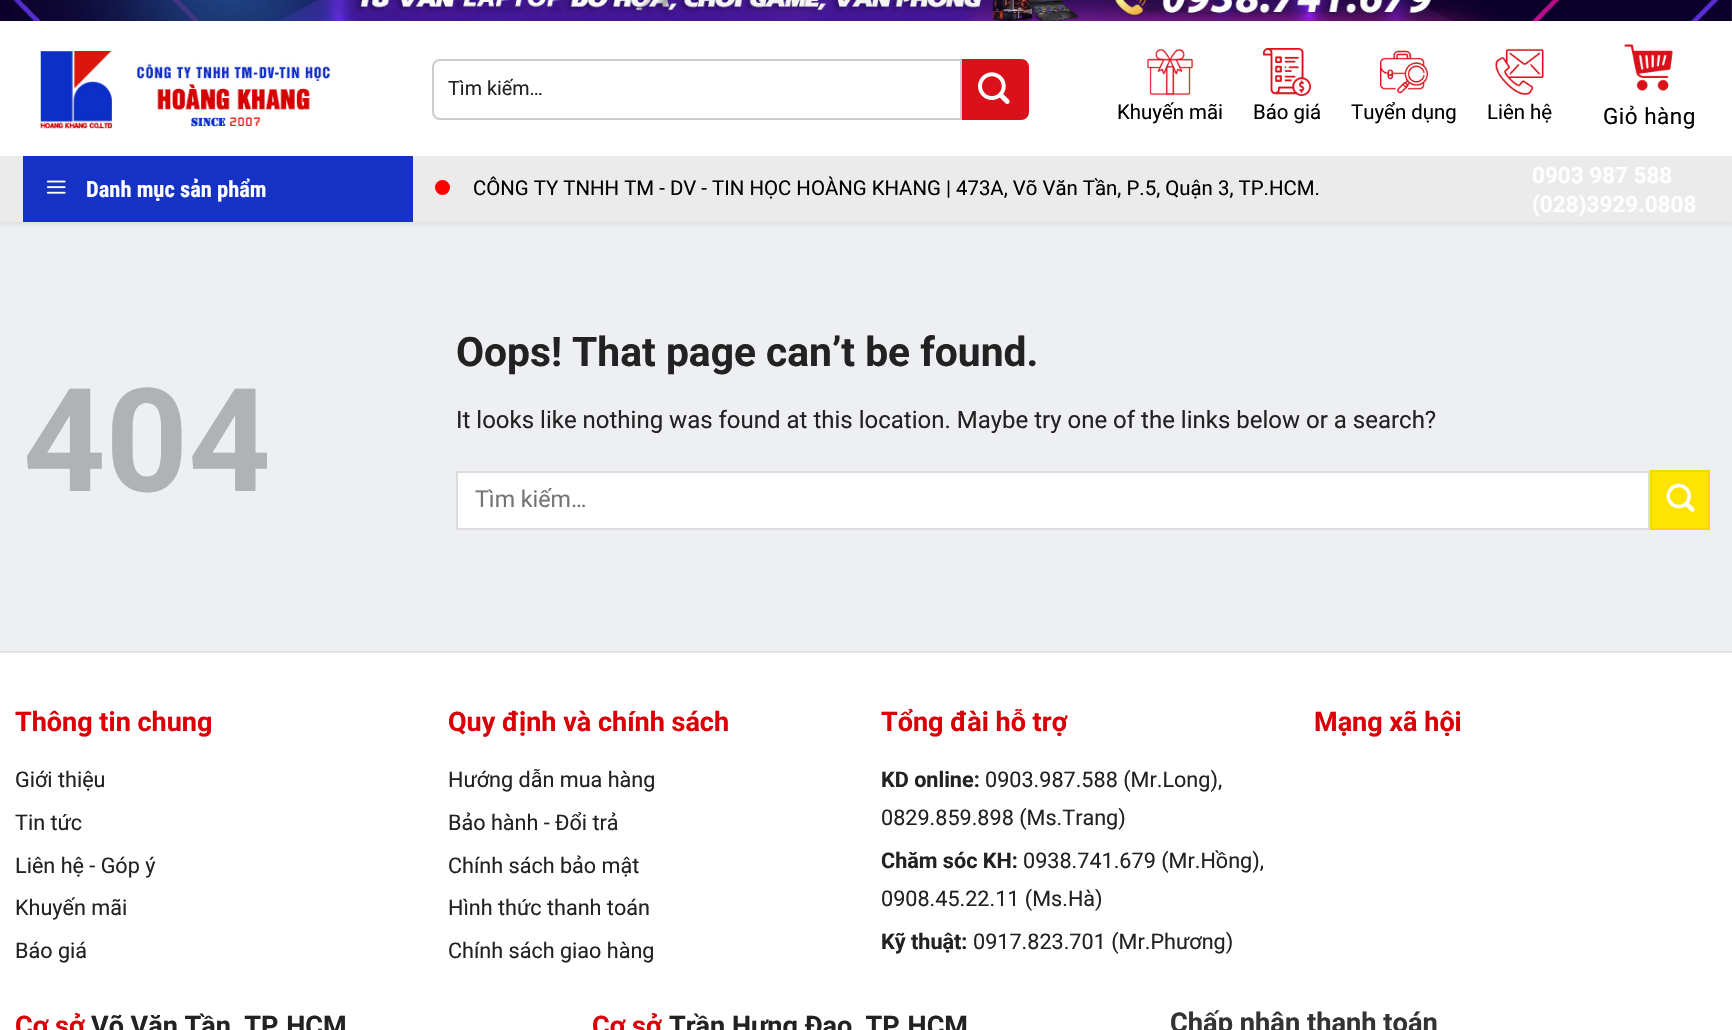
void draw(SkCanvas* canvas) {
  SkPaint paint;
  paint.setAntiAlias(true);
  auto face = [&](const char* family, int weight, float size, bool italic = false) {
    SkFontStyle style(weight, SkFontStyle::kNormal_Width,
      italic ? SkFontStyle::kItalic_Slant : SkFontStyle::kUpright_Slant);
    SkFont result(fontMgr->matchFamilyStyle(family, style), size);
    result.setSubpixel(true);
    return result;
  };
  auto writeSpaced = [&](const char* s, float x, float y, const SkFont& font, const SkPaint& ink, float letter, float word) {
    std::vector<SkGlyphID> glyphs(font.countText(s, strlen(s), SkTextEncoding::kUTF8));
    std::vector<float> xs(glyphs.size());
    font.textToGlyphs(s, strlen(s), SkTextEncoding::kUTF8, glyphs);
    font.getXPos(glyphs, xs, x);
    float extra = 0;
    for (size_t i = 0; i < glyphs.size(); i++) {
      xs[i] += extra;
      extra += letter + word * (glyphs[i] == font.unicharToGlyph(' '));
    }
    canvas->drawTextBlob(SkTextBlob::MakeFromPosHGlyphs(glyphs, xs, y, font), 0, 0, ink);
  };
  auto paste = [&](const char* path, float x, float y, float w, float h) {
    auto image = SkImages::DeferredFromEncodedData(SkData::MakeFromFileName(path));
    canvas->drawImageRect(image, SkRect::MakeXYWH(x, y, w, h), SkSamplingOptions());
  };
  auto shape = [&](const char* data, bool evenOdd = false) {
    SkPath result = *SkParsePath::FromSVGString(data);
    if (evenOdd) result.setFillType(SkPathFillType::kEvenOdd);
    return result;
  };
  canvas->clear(0xffedeff3);
  paint.setColor(0xffffffff);
  canvas->drawRect(SkRect::MakeXYWH(0, 21, 1732, 135), paint);
  paste("img/1.png", 0, 0, 1732, 21);
  paste("img/2.png", 39, 49, 291, 80);
  paint.setStroke(true);
  paint.setStrokeWidth(2);
  paint.setColor(0xffcccccc);
  canvas->drawPath(shape("M440 60H961V119H440C436 119 433 116 433 112V67C433 63 436 60 440 60Z"), paint);
  paint.setStroke(false);
  paint.setColor(0xffda111b);
  canvas->drawPath(shape("M962 59H1021C1025.5 59 1029 62.5 1029 67V112C1029 116.5 1025.5 120 1021 120H962Z"), paint);
  paste("img/3.png", 978, 72, 32, 32);
  paste("img/4.png", 1146, 48, 48, 48);
  paste("img/5.png", 1263, 48, 48, 48);
  paste("img/6.png", 1380, 50, 48, 44);
  paste("img/7.png", 1495, 48, 49, 48);
  paste("img/8.png", 1624, 44, 49, 47);
  paint.setColor(0xffe1e1e1);
  paint.setMaskFilter(SkMaskFilter::MakeBlur(kNormal_SkBlurStyle, 2));
  canvas->drawRect(SkRect::MakeXYWH(0, 159, 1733, 66), paint);
  paint.setMaskFilter(nullptr);
  paint.setColor(0xffebebeb);
  canvas->drawRect(SkRect::MakeXYWH(0, 156, 1732, 66), paint);
  paint.setColor(0xff1532c5);
  canvas->drawRect(SkRect::MakeXYWH(23, 156, 390, 66), paint);
  paste("img/9.png", 46, 180, 20, 14);
  paint.setColor(0xffff0000);
  canvas->drawCircle(442.5f, 187.5f, 7.5f, paint);
  paint.setColor(0xffffffff);
  canvas->drawRect(SkRect::MakeXYWH(457, 472, 1192, 57), paint);
  paint.setStroke(true);
  paint.setColor(0xffdddddd);
  canvas->drawRect(SkRect::MakeXYWH(457, 472, 1192, 57), paint);
  paint.setStroke(false);
  paint.setColor(0xffffe401);
  canvas->drawRect(SkRect::MakeXYWH(1651, 471, 58, 58), paint);
  paint.setStroke(true);
  paint.setColor(0xfff2d901);
  canvas->drawRect(SkRect::MakeXYWH(1651, 471, 58, 58), paint);
  paste("img/10.png", 1666, 483, 29, 29);
  paint.setStroke(false);
  paint.setColor(0xffffffff);
  canvas->drawRect(SkRect::MakeXYWH(0, 653, 1732, 377), paint);
  paint.setColor(0xffe2e2e2);
  canvas->drawRect(SkRect::MakeXYWH(0, 651, 1732, 2), paint);
  auto f0 = face("Roboto", 400, 19.75f);
  paint.setColor(0xff222222);
  canvas->drawString("Tìm kiếm…", 448, 95, f0, paint);
  auto f1 = face("Roboto", 400, 20.4f);
  paint.setColor(0xff000000);
  {
    const struct { const char* s; float x, y; } items[] = {
      {"Khuyến mãi", 1117, 119},
      {"Báo giá", 1253, 119},
      {"Tuyển dụng", 1351, 119},
      {"Liên hệ", 1487, 119},
    };
    for (auto [s, x, y] : items) {
      canvas->drawString(s, x, y, f1, paint);
    }
  }
  auto f2 = face("Roboto", 400, 22.5f);
  writeSpaced("Giỏ hàng", 1603, 124, f2, paint, 0.5f, 0);
  auto f3 = face("Roboto Condensed", 700, 22.5f);
  paint.setColor(0xffffffff);
  canvas->drawString("Danh mục sản phẩm", 86, 197, f3, paint);
  paint.setColor(0xff000000);
  canvas->drawString("CÔNG TY TNHH TM - DV - TIN HỌC HOÀNG KHANG | 473A, Võ Văn Tần, P.5, Quận 3, TP.HCM.", 473, 195, f1, paint);
  auto f4 = face("Roboto", 700, 22.5f);
  paint.setColor(0xffffffff);
  canvas->drawString("0903 987 588", 1532, 183, f4, paint);
  canvas->drawString("(028)3929.0808", 1532, 212, f4, paint);
  auto f5 = face("Roboto", 700, 144);
  paint.setColor(0xffb0b2b4);
  canvas->drawString("404", 23, 491, f5, paint);
  auto f6 = face("Roboto", 700, 40.75f);
  paint.setColor(0xff222222);
  canvas->drawString("Oops! That page can’t be found.", 456, 366, f6, paint);
  auto f7 = face("Roboto", 400, 24);
  canvas->drawString("It looks like nothing was found at this location. Maybe try one of the links below or a search?", 456, 428, f7, paint);
  auto f8 = face("Roboto", 400, 23.25f);
  paint.setColor(0xff757575);
  canvas->drawString("Tìm kiếm…", 475, 507, f8, paint);
  auto f9 = face("Roboto", 700, 27);
  paint.setColor(0xffdb0006);
  canvas->drawString("Thông tin chung", 15, 731, f9, paint);
  auto f10 = face("Roboto", 400, 21.6f);
  paint.setColor(0xff222222);
  {
    const struct { const char* s; float x, y; } items[] = {
      {"Giới thiệu", 15, 787},
      {"Tin tức", 15, 830},
      {"Liên hệ - Góp ý", 15, 873},
      {"Khuyến mãi", 15, 915},
      {"Báo giá", 15, 958},
    };
    for (auto [s, x, y] : items) {
      canvas->drawString(s, x, y, f10, paint);
    }
  }
  paint.setColor(0xffdb0006);
  canvas->drawString("Quy định và chính sách", 448, 731, f9, paint);
  paint.setColor(0xff222222);
  {
    const struct { const char* s; float x, y; } items[] = {
      {"Hướng dẫn mua hàng", 448, 787},
      {"Bảo hành - Đổi trả", 448, 830},
      {"Chính sách bảo mật", 448, 873},
      {"Hình thức thanh toán", 448, 915},
      {"Chính sách giao hàng", 448, 958},
    };
    for (auto [s, x, y] : items) {
      canvas->drawString(s, x, y, f10, paint);
    }
  }
  paint.setColor(0xffdb0006);
  canvas->drawString("Tổng đài hỗ trợ", 881, 731, f9, paint);
  auto f11 = face("Roboto", 700, 21.6f);
  paint.setColor(0xff222222);
  canvas->drawString("KD online:", 881, 787, f11, paint);
  canvas->drawString("0903.987.588 (Mr.Long),", 985, 787, f10, paint);
  canvas->drawString("0829.859.898 (Ms.Trang)", 881, 825, f10, paint);
  canvas->drawString("Chăm sóc KH:", 881, 868, f11, paint);
  canvas->drawString("0938.741.679 (Mr.Hồng),", 1023, 868, f10, paint);
  canvas->drawString("0908.45.22.11 (Ms.Hà)", 881, 906, f10, paint);
  canvas->drawString("Kỹ thuật:", 881, 949, f11, paint);
  canvas->drawString("0917.823.701 (Mr.Phương)", 973, 949, f10, paint);
  paint.setColor(0xffdb0006);
  canvas->drawString("Mạng xã hội", 1314, 731, f9, paint);
  canvas->drawString("Cơ sở", 15, 1035, f9, paint);
  paint.setColor(0xff222222);
  canvas->drawString("Võ Văn Tần, TP.HCM", 91, 1035, f9, paint);
  paint.setColor(0xffdb0006);
  canvas->drawString("Cơ sở", 592, 1035, f9, paint);
  paint.setColor(0xff222222);
  canvas->drawString("Trần Hưng Đạo, TP.HCM", 669, 1035, f9, paint);
  auto f12 = face("Roboto", 700, 27.25f);
  paint.setColor(0xff333333);
  canvas->drawString("Chấp nhận thanh toán", 1170, 1032, f12, paint);
}
